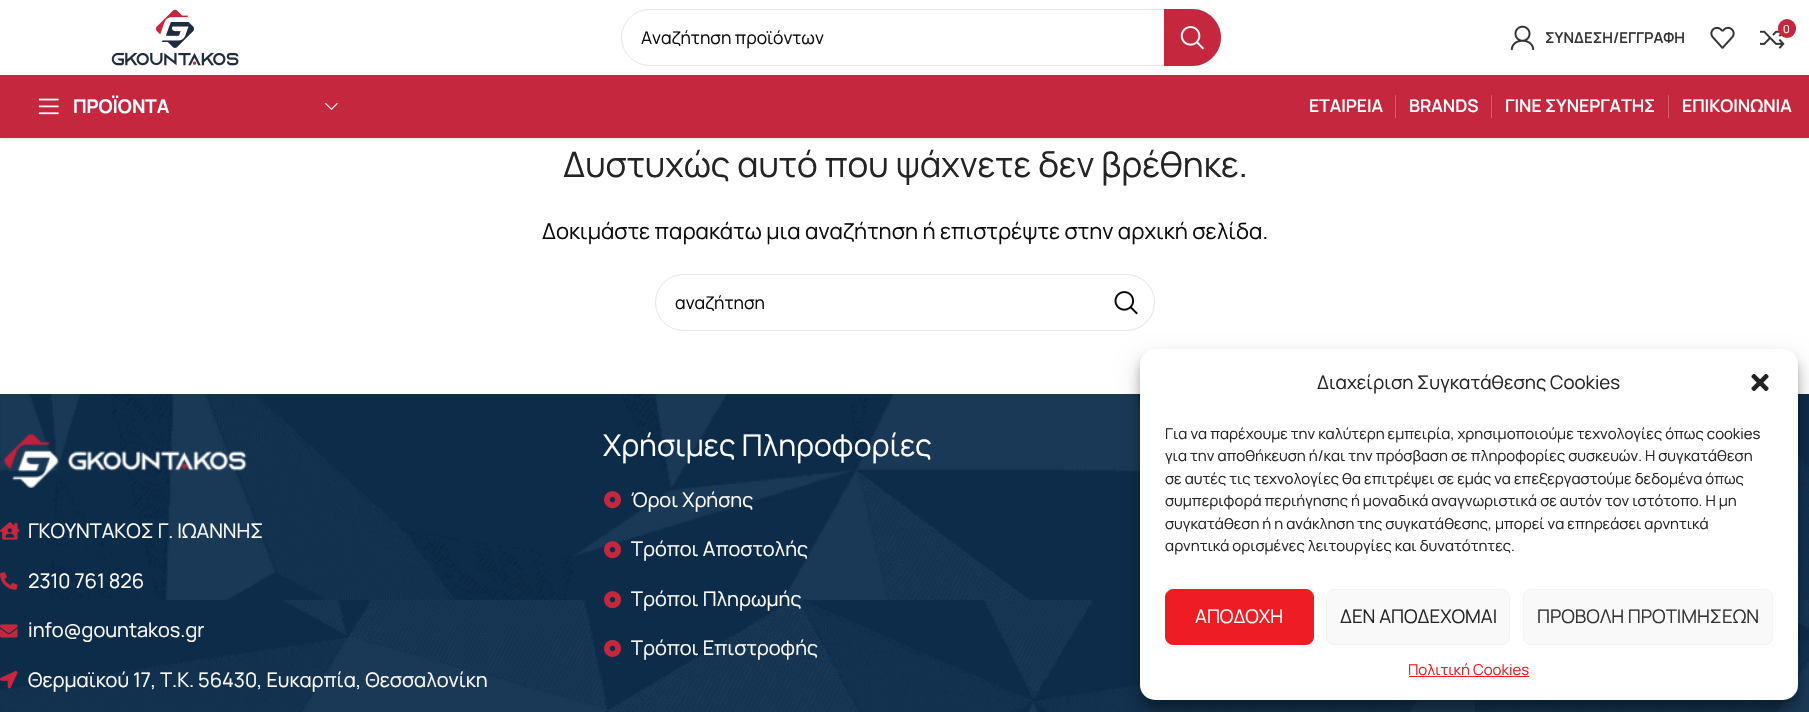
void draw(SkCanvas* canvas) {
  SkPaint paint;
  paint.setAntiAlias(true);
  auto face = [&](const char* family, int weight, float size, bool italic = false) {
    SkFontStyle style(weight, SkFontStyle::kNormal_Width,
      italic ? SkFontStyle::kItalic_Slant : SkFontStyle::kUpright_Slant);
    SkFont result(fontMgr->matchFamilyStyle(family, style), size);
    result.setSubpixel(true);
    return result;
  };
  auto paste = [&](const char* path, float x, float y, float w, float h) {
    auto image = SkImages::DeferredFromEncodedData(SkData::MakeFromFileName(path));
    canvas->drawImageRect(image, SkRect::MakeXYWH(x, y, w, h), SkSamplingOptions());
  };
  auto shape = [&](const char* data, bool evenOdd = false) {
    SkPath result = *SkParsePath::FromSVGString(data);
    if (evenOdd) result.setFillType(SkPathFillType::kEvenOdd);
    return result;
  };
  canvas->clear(0xffffffff);
  canvas->save();
  canvas->clipRect(SkRect::MakeXYWH(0, 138, 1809, 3));
  paint.setColor(0x1a000000);
  paint.setMaskFilter(SkMaskFilter::MakeBlur(kNormal_SkBlurStyle, 2));
  canvas->drawRect(SkRect::MakeXYWH(0, 1, 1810, 138), paint);
  paint.setMaskFilter(nullptr);
  canvas->restore();
  paste("img/1.png", 111, 9, 128, 57);
  paint.setStroke(true);
  paint.setStrokeWidth(1);
  paint.setColor(0xffe6e6e6);
  canvas->drawRoundRect(SkRect::MakeXYWH(621.5f, 9.5f, 599, 56), 28, 28, paint);
  paint.setStroke(false);
  paint.setColor(0xffc5273e);
  canvas->drawPath(shape("M1164 9H1192.5C1208 9 1221 22 1221 37.5C1221 53 1208 66 1192.5 66H1164Z"), paint);
  paste("img/2.png", 1180, 26, 24, 24);
  paste("img/3.png", 1510, 25, 25, 25);
  paste("img/4.png", 1710, 26, 25, 23);
  paste("img/5.png", 1760, 27, 25, 22);
  canvas->drawRoundRect(SkRect::MakeXYWH(1778, 19, 18, 19), 9, 9, paint);
  canvas->drawRect(SkRect::MakeXYWH(0, 75, 1809, 63), paint);
  paste("img/6.png", 38, 98, 21, 17);
  paste("img/7.png", 325, 103, 13, 7);
  {
    const struct { float x, y, w, h; SkColor color; } items[] = {
      {1395, 95, 1, 23, 0xffd45d6e},
      {1491, 95, 1, 23, 0xffd45d6e},
      {1668, 95, 1, 23, 0xffd45d6e},
    };
    for (auto [x, y, w, h, color] : items) {
      paint.setColor(color);
      canvas->drawRect(SkRect::MakeXYWH(x, y, w, h), paint);
    }
  }
  paint.setStroke(true);
  paint.setColor(0xffe6e6e6);
  canvas->drawRoundRect(SkRect::MakeXYWH(655.5f, 274.5f, 499, 56), 28, 28, paint);
  paste("img/8.png", 1114, 291, 24, 24);
  paste("img/9.png", 0, 394, 1809, 318);
  paste("img/10.png", 3, 433, 244, 56);
  paste("img/11.png", 0, 522, 20, 18);
  paste("img/12.png", 0, 572, 18, 18);
  paste("img/13.png", 0, 624, 18, 14);
  paste("img/14.png", 0, 671, 18, 18);
  paste("img/15.png", 604, 491, 17, 18);
  paste("img/16.png", 604, 541, 17, 18);
  paste("img/15.png", 604, 591, 17, 18);
  paste("img/17.png", 604, 640, 17, 17);
  paint.setStroke(false);
  paint.setColor(0x3b000000);
  paint.setMaskFilter(SkMaskFilter::MakeBlur(kNormal_SkBlurStyle, 4));
  canvas->drawRoundRect(SkRect::MakeXYWH(1140, 356, 658, 352), 15, 15, paint);
  paint.setMaskFilter(nullptr);
  paint.setColor(0x30000000);
  paint.setMaskFilter(SkMaskFilter::MakeBlur(kNormal_SkBlurStyle, 12.5f));
  canvas->drawRoundRect(SkRect::MakeXYWH(1140, 361, 658, 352), 15, 15, paint);
  paint.setMaskFilter(nullptr);
  paint.setColor(0xffffffff);
  canvas->drawRoundRect(SkRect::MakeXYWH(1140, 349, 658, 351), 15, 15, paint);
  paste("img/18.png", 1751, 373, 18, 18);
  paint.setColor(0xffee1d23);
  canvas->drawRoundRect(SkRect::MakeXYWH(1165.5f, 589.5f, 148, 55), 7.5f, 7.5f, paint);
  paint.setStroke(true);
  canvas->drawRoundRect(SkRect::MakeXYWH(1165.5f, 589.5f, 148, 55), 7.5f, 7.5f, paint);
  paint.setStroke(false);
  paint.setColor(0xfff9f9f9);
  canvas->drawRoundRect(SkRect::MakeXYWH(1326.5f, 589.5f, 183, 55), 7.5f, 7.5f, paint);
  paint.setStroke(true);
  paint.setColor(0xfff2f2f2);
  canvas->drawRoundRect(SkRect::MakeXYWH(1326.5f, 589.5f, 183, 55), 7.5f, 7.5f, paint);
  paint.setStroke(false);
  paint.setColor(0xfff9f9f9);
  canvas->drawRoundRect(SkRect::MakeXYWH(1523.5f, 589.5f, 249, 55), 7.5f, 7.5f, paint);
  paint.setStroke(true);
  paint.setColor(0xfff2f2f2);
  canvas->drawRoundRect(SkRect::MakeXYWH(1523.5f, 589.5f, 249, 55), 7.5f, 7.5f, paint);
  paint.setStroke(false);
  paint.setColor(0xffee1d23);
  canvas->drawRect(SkRect::MakeXYWH(1409, 676, 120, 1), paint);
  auto f0 = face("Manrope", 400, 17.5f);
  paint.setColor(0xff0a0a0a);
  canvas->drawString("Αναζήτηση προϊόντων", 641, 44, f0, paint);
  auto f1 = face("Manrope", 600, 15);
  paint.setColor(0xff333333);
  canvas->drawString("ΣΥΝΔΕΣΗ/ΕΓΓΡΑΦΗ", 1545, 43, f1, paint);
  auto f2 = face("Manrope", 400, 11);
  paint.setColor(0xffffffff);
  canvas->drawString("0", 1783, 33, f2, paint);
  auto f3 = face("Manrope", 700, 18.75f);
  canvas->drawString("ΠΡΟΪΟΝΤΑ", 73, 113, f3, paint);
  auto f4 = face("Manrope", 600, 17.5f);
  {
    const struct { const char* s; float x, y; } items[] = {
      {"ΕΤΑΙΡΕΙΑ", 1309, 112},
      {"BRANDS", 1409, 112},
      {"ΓΙΝΕ ΣΥΝΕΡΓΑΤΗΣ", 1505, 112},
      {"ΕΠΙΚΟΙΝΩΝΙΑ", 1682, 112},
    };
    for (auto [s, x, y] : items) {
      canvas->drawString(s, x, y, f4, paint);
    }
  }
  auto f5 = face("Manrope", 400, 35);
  paint.setColor(0xff242424);
  canvas->drawString("Δυστυχώς αυτό που ψάχνετε δεν βρέθηκε.", 563, 177, f5, paint);
  auto f6 = face("Manrope", 400, 22);
  paint.setColor(0xff0a0a0a);
  canvas->drawString("Δοκιμάστε παρακάτω μια αναζήτηση ή επιστρέψτε στην αρχική σελίδα.", 542, 239, f6, paint);
  canvas->drawString("αναζήτηση", 675, 309, f0, paint);
  auto f7 = face("Manrope", 400, 20);
  paint.setColor(0xffffffff);
  {
    const struct { const char* s; float x, y; } items[] = {
      {"ΓΚΟΥΝΤΑΚΟΣ Γ. ΙΩΑΝΝΗΣ", 28, 538},
      {"2310 761 826", 28, 588},
      {"info@gountakos.gr", 28, 637},
      {"Θερμαϊκού 17, Τ.Κ. 56430, Ευκαρπία, Θεσσαλονίκη", 28, 687},
    };
    for (auto [s, x, y] : items) {
      canvas->drawString(s, x, y, f7, paint);
    }
  }
  auto f8 = face("Manrope", 400, 30);
  canvas->drawString("Χρήσιμες Πληροφορίες", 603, 456, f8, paint);
  {
    const struct { const char* s; float x, y; } items[] = {
      {"Όροι Χρήσης", 631, 507},
      {"Τρόποι Αποστολής", 631, 556},
      {"Τρόποι Πληρωμής", 631, 606},
      {"Τρόποι Επιστροφής", 631, 655},
    };
    for (auto [s, x, y] : items) {
      canvas->drawString(s, x, y, f7, paint);
    }
  }
  auto f9 = face("Manrope", 400, 18.75f);
  paint.setColor(0xff242424);
  canvas->drawString("Διαχείριση Συγκατάθεσης Cookies", 1317, 389, f9, paint);
  auto f10 = face("Manrope", 400, 15);
  {
    const struct { const char* s; float x, y; } items[] = {
      {"Για να παρέχουμε την καλύτερη εμπειρία, χρησιμοποιούμε τεχνολογίες όπως cookies", 1165, 439},
      {"για την αποθήκευση ή/και την πρόσβαση σε πληροφορίες συσκευών. Η συγκατάθεση", 1165, 461},
      {"σε αυτές τις τεχνολογίες θα επιτρέψει σε εμάς να επεξεργαστούμε δεδομένα όπως", 1165, 484},
      {"συμπεριφορά περιήγησης ή μοναδικά αναγνωριστικά σε αυτόν τον ιστότοπο. Η μη", 1165, 506},
      {"συγκατάθεση ή η ανάκληση της συγκατάθεσης, μπορεί να επηρεάσει αρνητικά", 1165, 529},
      {"αρνητικά ορισμένες λειτουργίες και δυνατότητες.", 1165, 551},
    };
    for (auto [s, x, y] : items) {
      canvas->drawString(s, x, y, f10, paint);
    }
  }
  paint.setColor(0xffffffff);
  canvas->drawString("ΑΠΟΔΟΧΗ", 1195, 623, f9, paint);
  paint.setColor(0xff242424);
  canvas->drawString("ΔΕΝ ΑΠΟΔΕΧΟΜΑΙ", 1340, 623, f9, paint);
  paint.setColor(0xff333333);
  canvas->drawString("ΠΡΟΒΟΛΗ ΠΡΟΤΙΜΗΣΕΩΝ", 1537, 623, f9, paint);
  paint.setColor(0xffee1d23);
  canvas->drawString("Πολιτική Cookies", 1408, 675, f10, paint);
}
